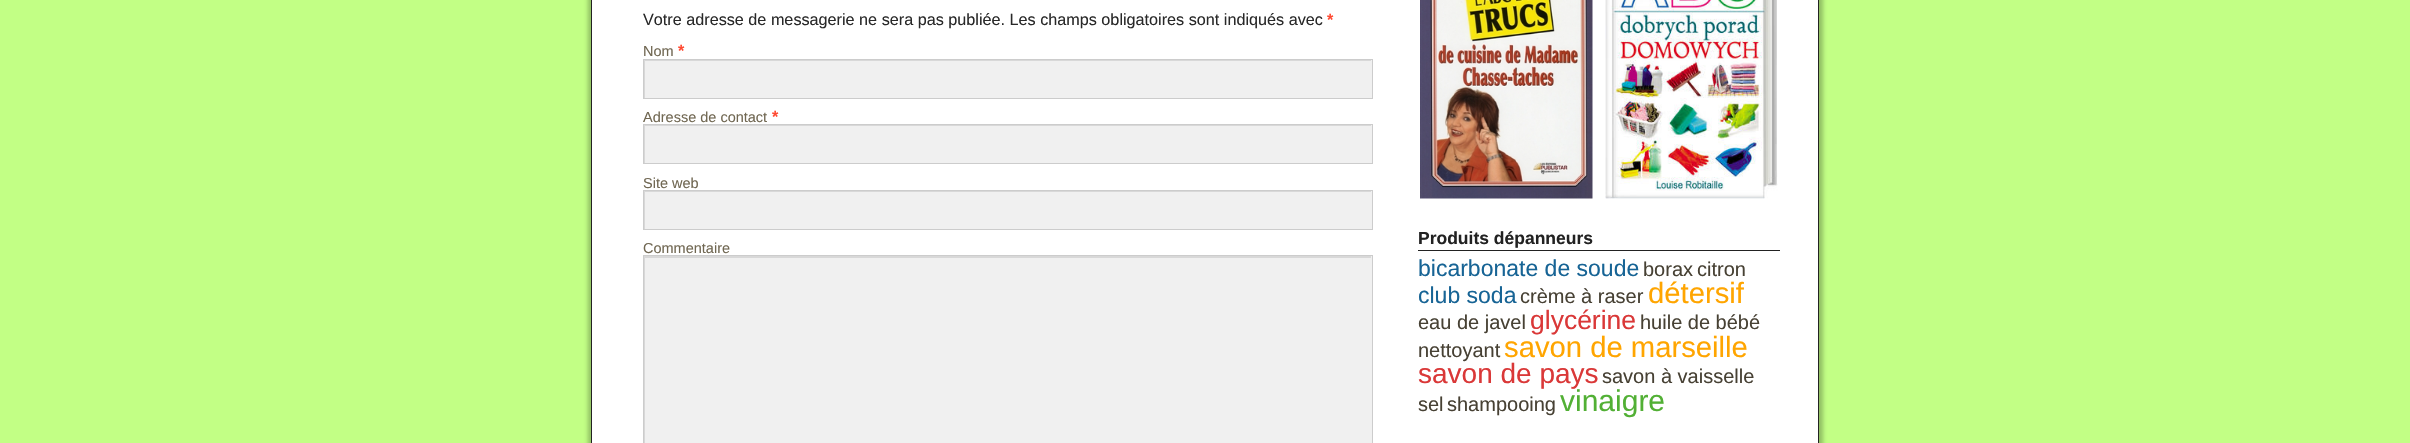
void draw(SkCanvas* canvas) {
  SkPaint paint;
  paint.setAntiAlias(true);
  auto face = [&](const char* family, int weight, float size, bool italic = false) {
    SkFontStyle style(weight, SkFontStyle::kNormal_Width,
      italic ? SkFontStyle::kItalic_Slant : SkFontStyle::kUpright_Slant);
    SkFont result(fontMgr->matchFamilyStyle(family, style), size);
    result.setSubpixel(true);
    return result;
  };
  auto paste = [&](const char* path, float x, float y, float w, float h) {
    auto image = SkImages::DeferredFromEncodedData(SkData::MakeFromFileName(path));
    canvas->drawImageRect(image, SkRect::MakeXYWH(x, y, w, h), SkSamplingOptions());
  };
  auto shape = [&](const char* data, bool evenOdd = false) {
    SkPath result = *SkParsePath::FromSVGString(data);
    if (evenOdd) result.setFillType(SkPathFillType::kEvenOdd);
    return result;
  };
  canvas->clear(0xffc2ff85);
  paint.setColor(0x40000000);
  paint.setMaskFilter(SkMaskFilter::MakeBlur(kNormal_SkBlurStyle, 2));
  canvas->drawRoundRect(SkRect::MakeXYWH(588, -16, 1235, 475), 10, 10, paint);
  paint.setMaskFilter(nullptr);
  paint.setColor(0xffffffff);
  canvas->drawRect(SkRect::MakeXYWH(591.5f, -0.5f, 1227, 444), paint);
  paint.setStroke(true);
  paint.setStrokeWidth(1);
  paint.setColor(0xff222222);
  canvas->drawRect(SkRect::MakeXYWH(591.5f, -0.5f, 1227, 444), paint);
  paint.setStroke(false);
  paint.setColor(0xfff0f0f0);
  canvas->drawRect(SkRect::MakeXYWH(645, 60, 727, 38), paint);
  canvas->save();
  canvas->clipRect(SkRect::MakeXYWH(644, 60, 727, 38));
  paint.setColor(0xffd8d8d8);
  canvas->drawPath(shape("M520-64H1495V221H520ZM645 61H1372V99H645Z", true), paint);
  canvas->restore();
  paint.setStroke(true);
  paint.setColor(0xffcccccc);
  canvas->drawRect(SkRect::MakeXYWH(643.5f, 59.5f, 729, 39), paint);
  paint.setStroke(false);
  paint.setColor(0xfff0f0f0);
  canvas->drawRect(SkRect::MakeXYWH(645, 125, 727, 38), paint);
  canvas->save();
  canvas->clipRect(SkRect::MakeXYWH(644, 125, 727, 38));
  paint.setColor(0xffd8d8d8);
  canvas->drawPath(shape("M520 1H1495V286H520ZM645 126H1372V164H645Z", true), paint);
  canvas->restore();
  paint.setStroke(true);
  paint.setColor(0xffcccccc);
  canvas->drawRect(SkRect::MakeXYWH(643.5f, 124.5f, 729, 39), paint);
  paint.setStroke(false);
  paint.setColor(0xfff0f0f0);
  canvas->drawRect(SkRect::MakeXYWH(645, 191, 727, 38), paint);
  canvas->save();
  canvas->clipRect(SkRect::MakeXYWH(644, 191, 727, 38));
  paint.setColor(0xffd8d8d8);
  canvas->drawPath(shape("M520 68H1495V352H520ZM645 192H1372V230H645Z", true), paint);
  canvas->restore();
  paint.setStroke(true);
  paint.setColor(0xffcccccc);
  canvas->drawRect(SkRect::MakeXYWH(643.5f, 190.5f, 729, 39), paint);
  paint.setStroke(false);
  paint.setColor(0xfff0f0f0);
  canvas->drawRect(SkRect::MakeXYWH(645, 256, 727, 187), paint);
  canvas->save();
  canvas->clipRect(SkRect::MakeXYWH(644, 256, 727, 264));
  paint.setColor(0xffd8d8d8);
  canvas->drawPath(shape("M520 132H1495V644H520ZM645 258H1372V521H645Z", true), paint);
  canvas->restore();
  paint.setStroke(true);
  paint.setColor(0xffcccccc);
  canvas->drawRect(SkRect::MakeXYWH(643.5f, 255.5f, 729, 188), paint);
  paste("img/1.png", 1420, 0, 173, 199);
  paste("img/2.png", 1605, 0, 173, 199);
  paint.setStroke(false);
  paint.setColor(0xff222222);
  canvas->drawRect(SkRect::MakeXYWH(1418, 250, 362, 1), paint);
  auto f0 = face("Liberation Sans", 400, 16.2f);
  paint.setColor(0xff292929);
  canvas->drawString("Votre adresse de messagerie ne sera pas publiée. Les champs obligatoires sont indiqués avec", 643, 25, f0, paint);
  auto f1 = face("Liberation Sans", 700, 16.2f);
  paint.setColor(0xffff4b33);
  canvas->drawString("*", 1327, 25, f1, paint);
  auto f2 = face("Liberation Sans", 400, 14.5f);
  paint.setColor(0xff706752);
  canvas->drawString("Nom", 643, 56, f2, paint);
  paint.setColor(0xffff4b33);
  canvas->drawString("*", 678, 56, f1, paint);
  paint.setColor(0xff706752);
  canvas->drawString("Adresse de contact", 643, 122, f2, paint);
  paint.setColor(0xffff4b33);
  canvas->drawString("*", 772, 122, f1, paint);
  paint.setColor(0xff706752);
  canvas->drawString("Site web", 643, 188, f2, paint);
  canvas->drawString("Commentaire", 643, 253, f2, paint);
  auto f3 = face("Liberation Sans", 700, 17.5f);
  paint.setColor(0xff222222);
  canvas->drawString("Produits dépanneurs", 1418, 244, f3, paint);
  auto f4 = face("Liberation Sans", 400, 23);
  paint.setColor(0xff176495);
  canvas->drawString("bicarbonate de soude", 1418, 276, f4, paint);
  auto f5 = face("Liberation Sans", 400, 20);
  paint.setColor(0xff474134);
  canvas->drawString("borax", 1643, 276, f5, paint);
  canvas->drawString("citron", 1697, 276, f5, paint);
  paint.setColor(0xff176495);
  canvas->drawString("club soda", 1418, 303, f4, paint);
  paint.setColor(0xff474134);
  canvas->drawString("crème à raser", 1520, 303, f5, paint);
  auto f6 = face("Liberation Sans", 400, 29.25f);
  paint.setColor(0xffffa500);
  canvas->drawString("détersif", 1648, 303, f6, paint);
  paint.setColor(0xff474134);
  canvas->drawString("eau de javel", 1418, 329, f5, paint);
  auto f7 = face("Liberation Sans", 400, 26.5f);
  paint.setColor(0xffda3838);
  canvas->drawString("glycérine", 1530, 329, f7, paint);
  paint.setColor(0xff474134);
  canvas->drawString("huile de bébé", 1640, 329, f5, paint);
  canvas->drawString("nettoyant", 1418, 357, f5, paint);
  paint.setColor(0xffffa500);
  canvas->drawString("savon de marseille", 1504, 357, f6, paint);
  auto f8 = face("Liberation Sans", 400, 28);
  paint.setColor(0xffda3838);
  canvas->drawString("savon de pays", 1418, 383, f8, paint);
  paint.setColor(0xff474134);
  {
    const struct { const char* s; float x, y; } items[] = {
      {"savon à vaisselle", 1602, 383},
      {"sel", 1418, 411},
      {"shampooing", 1447, 411},
    };
    for (auto [s, x, y] : items) {
      canvas->drawString(s, x, y, f5, paint);
    }
  }
  auto f9 = face("Liberation Sans", 400, 30);
  paint.setColor(0xff52b035);
  canvas->drawString("vinaigre", 1560, 411, f9, paint);
}
